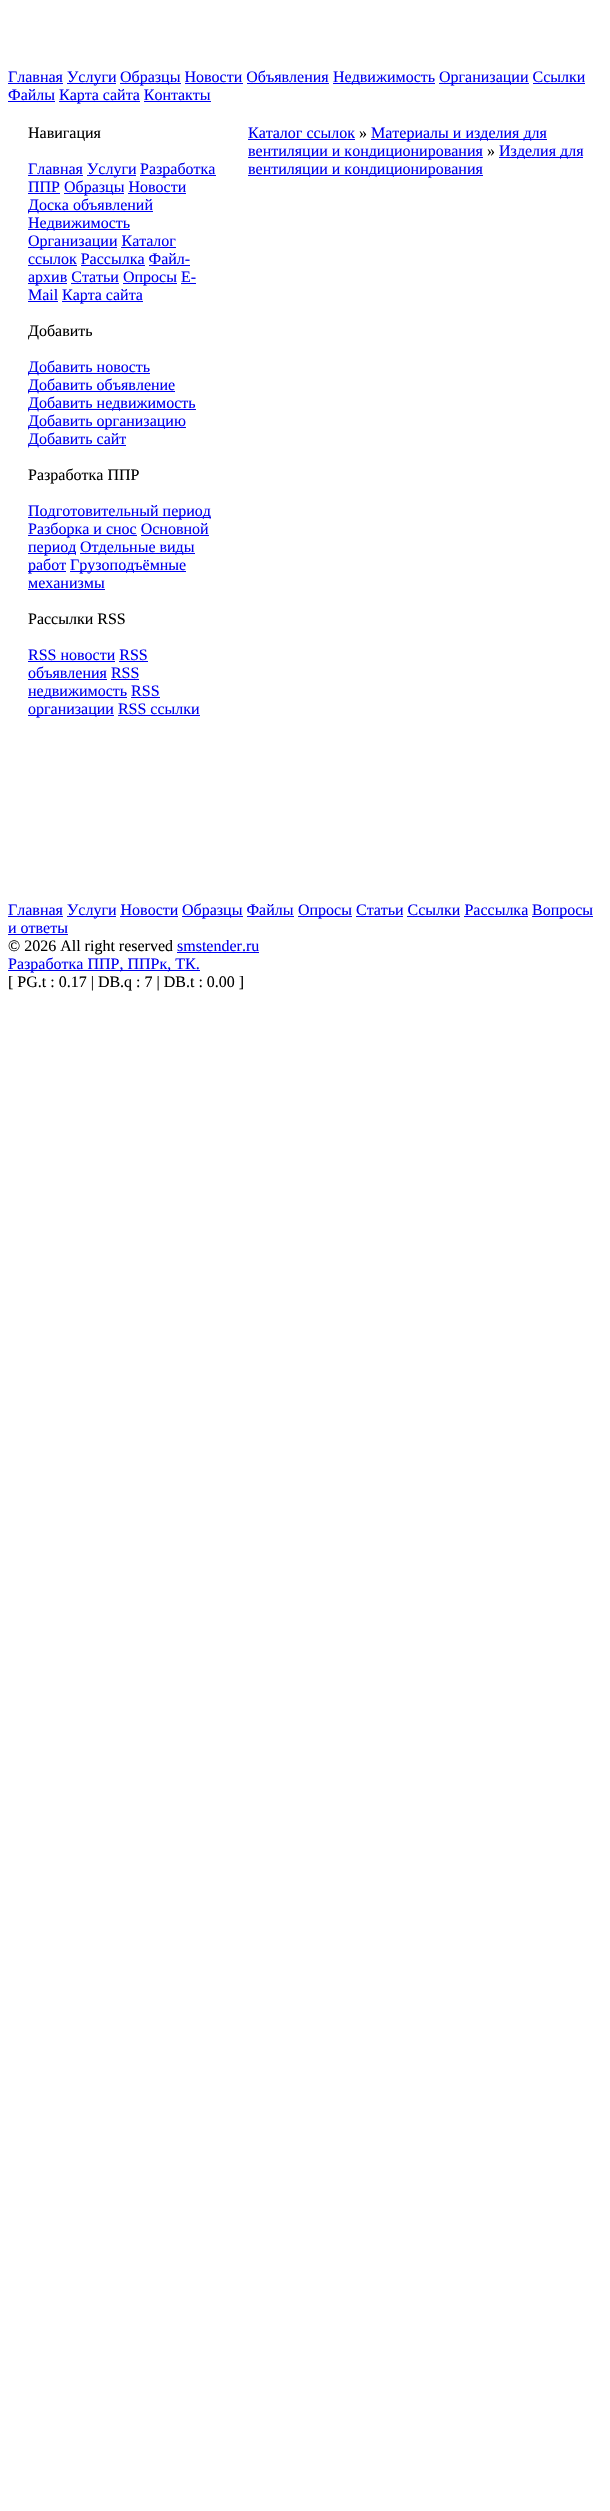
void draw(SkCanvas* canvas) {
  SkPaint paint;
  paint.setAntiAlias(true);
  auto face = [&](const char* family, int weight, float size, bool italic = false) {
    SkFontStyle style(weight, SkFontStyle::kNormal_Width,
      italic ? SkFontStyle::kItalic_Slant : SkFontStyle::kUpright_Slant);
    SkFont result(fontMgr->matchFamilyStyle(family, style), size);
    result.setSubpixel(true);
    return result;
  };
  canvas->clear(0xffffffff);
  {
    const struct { float x, y, w, h; SkColor color; } items[] = {
      {8, 83, 55, 1, 0xff0000ee},
      {67, 83, 49, 1, 0xff0000ee},
      {120, 83, 61, 1, 0xff0000ee},
      {333, 83, 102, 1, 0xff0000ee},
      {439, 83, 90, 1, 0xff0000ee},
      {185, 83, 58, 1, 0xff0000ee},
      {247, 83, 82, 1, 0xff0000ee},
      {533, 83, 52, 1, 0xff0000ee},
      {8, 101, 47, 1, 0xff0000ee},
      {59, 101, 81, 1, 0xff0000ee},
      {144, 101, 67, 1, 0xff0000ee},
      {28, 175, 55, 1, 0xff0000ee},
      {87, 175, 49, 1, 0xff0000ee},
      {140, 175, 76, 1, 0xff0000ee},
      {28, 193, 32, 1, 0xff0000ee},
      {64, 193, 60, 1, 0xff0000ee},
      {128, 193, 58, 1, 0xff0000ee},
      {28, 211, 125, 1, 0xff0000ee},
      {28, 229, 102, 1, 0xff0000ee},
      {28, 247, 89, 1, 0xff0000ee},
      {121, 247, 55, 1, 0xff0000ee},
      {28, 265, 49, 1, 0xff0000ee},
      {81, 265, 64, 1, 0xff0000ee},
      {149, 265, 41, 1, 0xff0000ee},
      {28, 283, 39, 1, 0xff0000ee},
      {123, 283, 54, 1, 0xff0000ee},
      {71, 283, 48, 1, 0xff0000ee},
      {181, 283, 15, 1, 0xff0000ee},
      {28, 301, 30, 1, 0xff0000ee},
      {62, 301, 81, 1, 0xff0000ee},
      {28, 373, 122, 1, 0xff0000ee},
      {28, 391, 147, 1, 0xff0000ee},
      {28, 409, 168, 1, 0xff0000ee},
      {28, 427, 158, 1, 0xff0000ee},
      {28, 445, 98, 1, 0xff0000ee},
      {28, 517, 183, 1, 0xff0000ee},
      {28, 535, 109, 1, 0xff0000ee},
      {141, 535, 68, 1, 0xff0000ee},
      {28, 553, 48, 1, 0xff0000ee},
      {80, 553, 115, 1, 0xff0000ee},
      {28, 571, 38, 1, 0xff0000ee},
      {70, 571, 116, 1, 0xff0000ee},
      {28, 589, 77, 1, 0xff0000ee},
      {28, 661, 87, 1, 0xff0000ee},
      {119, 661, 29, 1, 0xff0000ee},
      {28, 679, 79, 1, 0xff0000ee},
      {111, 679, 28, 1, 0xff0000ee},
      {28, 697, 99, 1, 0xff0000ee},
      {131, 697, 29, 1, 0xff0000ee},
      {28, 715, 86, 1, 0xff0000ee},
      {118, 715, 82, 1, 0xff0000ee},
      {248, 139, 107, 1, 0xff0000ee},
      {371, 139, 176, 1, 0xff0000ee},
      {248, 157, 235, 1, 0xff0000ee},
      {499, 157, 84, 1, 0xff0000ee},
      {248, 175, 235, 1, 0xff0000ee},
      {8, 916, 55, 1, 0xff0000ee},
      {67, 916, 49, 1, 0xff0000ee},
      {182, 916, 61, 1, 0xff0000ee},
      {298, 916, 54, 1, 0xff0000ee},
      {532, 916, 61, 1, 0xff0000ee},
      {120, 916, 58, 1, 0xff0000ee},
      {247, 916, 47, 1, 0xff0000ee},
      {356, 916, 47, 1, 0xff0000ee},
      {407, 916, 53, 1, 0xff0000ee},
      {464, 916, 64, 1, 0xff0000ee},
      {8, 934, 60, 1, 0xff0000ee},
      {177, 952, 82, 1, 0xff0000ee},
      {8, 970, 192, 1, 0xff0000ee},
    };
    for (auto [x, y, w, h, color] : items) {
      paint.setColor(color);
      canvas->drawRect(SkRect::MakeXYWH(x, y, w, h), paint);
    }
  }
  auto f0 = face("Liberation Serif", 400, 16);
  {
    const struct { const char* s; float x, y; } items[] = {
      {"Главная", 8, 82},
      {"Услуги", 67, 82},
      {"Образцы Новости Объявления", 120, 82},
      {"Недвижимость", 333, 82},
      {"Организации Ссылки", 439, 82},
      {"Файлы", 8, 100},
      {"Карта сайта Контакты", 59, 100},
    };
    for (auto [s, x, y] : items) {
      canvas->drawString(s, x, y, f0, paint);
    }
  }
  paint.setColor(0xff000000);
  canvas->drawString("Навигация", 28, 138, f0, paint);
  paint.setColor(0xff0000ee);
  {
    const struct { const char* s; float x, y; } items[] = {
      {"Главная", 28, 174},
      {"Услуги", 87, 174},
      {"Разработка", 140, 174},
      {"ППР", 28, 192},
      {"Образцы Новости", 64, 192},
      {"Доска объявлений", 28, 210},
      {"Недвижимость", 28, 228},
      {"Организации Каталог", 28, 246},
      {"ссылок Рассылка Файл-", 28, 264},
      {"архив Статьи", 28, 282},
      {"Опросы E-", 123, 282},
      {"Mail", 28, 300},
      {"Карта сайта", 62, 300},
    };
    for (auto [s, x, y] : items) {
      canvas->drawString(s, x, y, f0, paint);
    }
  }
  paint.setColor(0xff000000);
  canvas->drawString("Добавить", 28, 336, f0, paint);
  paint.setColor(0xff0000ee);
  {
    const struct { const char* s; float x, y; } items[] = {
      {"Добавить новость", 28, 372},
      {"Добавить объявление", 28, 390},
      {"Добавить недвижимость", 28, 408},
      {"Добавить организацию", 28, 426},
      {"Добавить сайт", 28, 444},
    };
    for (auto [s, x, y] : items) {
      canvas->drawString(s, x, y, f0, paint);
    }
  }
  paint.setColor(0xff000000);
  canvas->drawString("Разработка ППР", 28, 480, f0, paint);
  paint.setColor(0xff0000ee);
  {
    const struct { const char* s; float x, y; } items[] = {
      {"Подготовительный период", 28, 516},
      {"Разборка и снос Основной", 28, 534},
      {"период", 28, 552},
      {"Отдельные виды", 80, 552},
      {"работ", 28, 570},
      {"Грузоподъёмные", 70, 570},
      {"механизмы", 28, 588},
    };
    for (auto [s, x, y] : items) {
      canvas->drawString(s, x, y, f0, paint);
    }
  }
  paint.setColor(0xff000000);
  canvas->drawString("Рассылки RSS", 28, 624, f0, paint);
  paint.setColor(0xff0000ee);
  {
    const struct { const char* s; float x, y; } items[] = {
      {"RSS новости RSS", 28, 660},
      {"объявления RSS", 28, 678},
      {"недвижимость RSS", 28, 696},
      {"организации RSS ссылки", 28, 714},
      {"Каталог ссылок", 248, 138},
    };
    for (auto [s, x, y] : items) {
      canvas->drawString(s, x, y, f0, paint);
    }
  }
  paint.setColor(0xff000000);
  canvas->drawString("»", 359, 138, f0, paint);
  paint.setColor(0xff0000ee);
  canvas->drawString("Материалы и изделия для", 371, 138, f0, paint);
  canvas->drawString("вентиляции и кондиционирования", 248, 156, f0, paint);
  paint.setColor(0xff000000);
  canvas->drawString("»", 487, 156, f0, paint);
  paint.setColor(0xff0000ee);
  {
    const struct { const char* s; float x, y; } items[] = {
      {"Изделия для", 499, 156},
      {"вентиляции и кондиционирования", 248, 174},
      {"Главная", 8, 915},
      {"Услуги Новости", 67, 915},
      {"Образцы Файлы", 182, 915},
      {"Опросы Статьи Ссылки Рассылка", 298, 915},
      {"Вопросы", 532, 915},
      {"и ответы", 8, 933},
    };
    for (auto [s, x, y] : items) {
      canvas->drawString(s, x, y, f0, paint);
    }
  }
  paint.setColor(0xff000000);
  canvas->drawString("© 2026 All right reserved", 8, 951, f0, paint);
  paint.setColor(0xff0000ee);
  canvas->drawString("smstender.ru", 177, 951, f0, paint);
  canvas->drawString("Разработка ППР, ППРк, ТК.", 8, 969, f0, paint);
  paint.setColor(0xff000000);
  canvas->drawString("[ PG.t : 0.17 | DB.q : 7 | DB.t : 0.00 ]", 8, 987, f0, paint);
}
